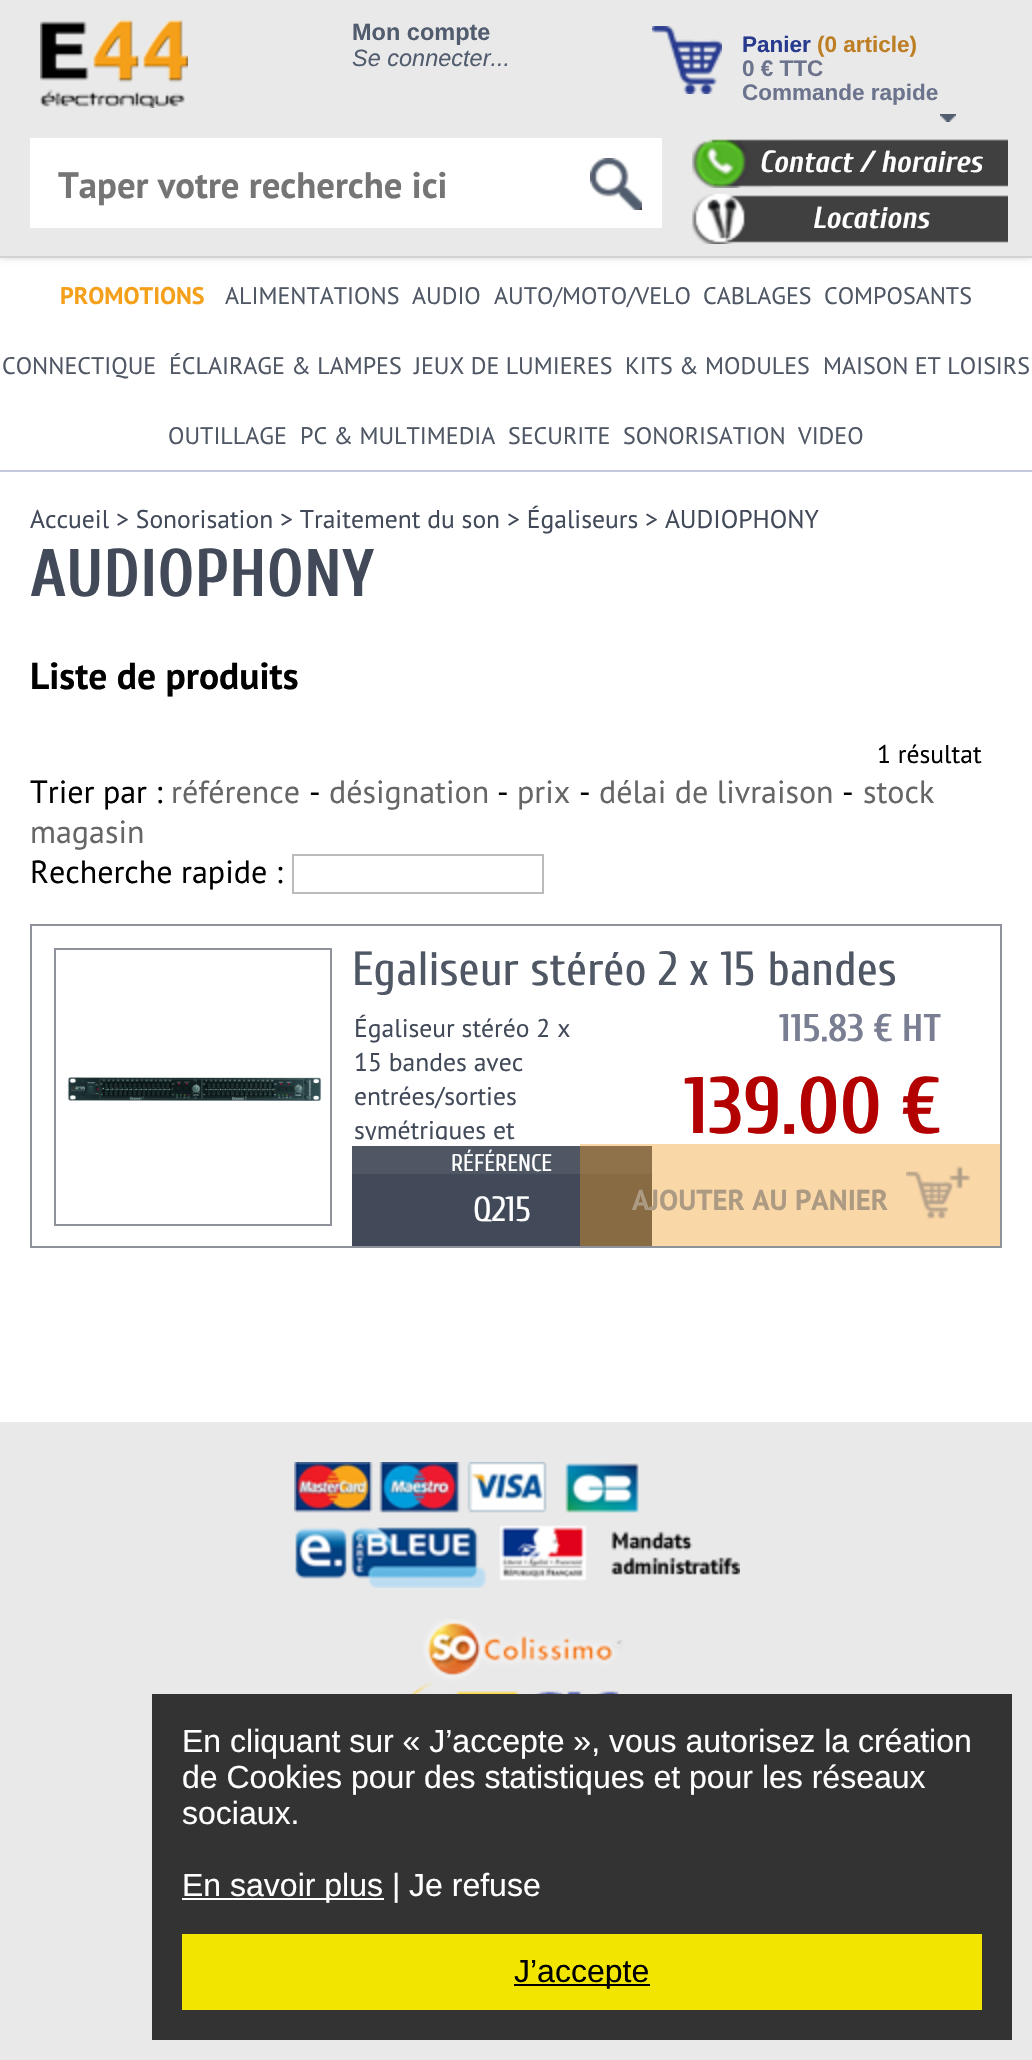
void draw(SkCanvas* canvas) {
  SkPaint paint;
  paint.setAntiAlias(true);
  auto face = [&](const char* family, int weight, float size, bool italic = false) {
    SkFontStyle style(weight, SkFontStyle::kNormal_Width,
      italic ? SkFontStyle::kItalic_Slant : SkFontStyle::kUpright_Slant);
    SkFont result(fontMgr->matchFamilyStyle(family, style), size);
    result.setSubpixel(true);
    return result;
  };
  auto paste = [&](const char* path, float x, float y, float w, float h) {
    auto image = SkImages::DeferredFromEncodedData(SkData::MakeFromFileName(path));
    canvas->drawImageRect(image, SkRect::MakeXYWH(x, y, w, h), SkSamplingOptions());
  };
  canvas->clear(0xffffffff);
  paint.setColor(0xfffad7a7);
  canvas->drawRect(SkRect::MakeXYWH(580, 1144, 420, 102), paint);
  paint.setColor(0xffd3d3d3);
  paint.setMaskFilter(SkMaskFilter::MakeBlur(kNormal_SkBlurStyle, 3));
  canvas->drawRect(SkRect::MakeXYWH(0, 0, 1032, 258), paint);
  paint.setMaskFilter(nullptr);
  paint.setColor(0xffe9e9e9);
  canvas->drawRect(SkRect::MakeXYWH(0, 0, 1032, 256), paint);
  paint.setColor(0xffd3d3d3);
  canvas->drawRect(SkRect::MakeXYWH(0, 256, 1032, 2), paint);
  paste("img/1.png", 40, 20, 148, 88);
  paste("img/2.png", 652, 26, 70, 68);
  paste("img/3.png", 940, 114, 16, 8);
  paint.setColor(0xffffffff);
  canvas->drawRect(SkRect::MakeXYWH(30, 138, 632, 90), paint);
  paste("img/4.png", 590, 158, 52, 52);
  paste("img/5.png", 692, 139, 316, 49);
  paste("img/6.png", 692, 194, 316, 50);
  paint.setColor(0xffc3c8df);
  canvas->drawRect(SkRect::MakeXYWH(0, 470, 1032, 2), paint);
  paint.setStroke(true);
  paint.setStrokeWidth(2);
  paint.setColor(0xffbbbbbb);
  canvas->drawRect(SkRect::MakeXYWH(293, 855, 250, 38), paint);
  paint.setColor(0xff8e929b);
  canvas->drawRect(SkRect::MakeXYWH(31, 925, 970, 322), paint);
  canvas->drawRect(SkRect::MakeXYWH(55, 949, 276, 276), paint);
  paste("img/7.png", 67, 1077, 255, 24);
  paste("img/8.png", 906, 1165, 64, 54);
  paint.setStroke(false);
  {
    const struct { float x, y, w, h; SkColor color; } items[] = {
      {352, 1174, 228, 72, 0xff424a59},
      {580, 1174, 72, 72, 0xff886a43},
      {352, 1146, 228, 28, 0xff4f5765},
      {580, 1146, 72, 28, 0xff90724a},
      {0, 1422, 1032, 638, 0xffe9e9e9},
    };
    for (auto [x, y, w, h, color] : items) {
      paint.setColor(color);
      canvas->drawRect(SkRect::MakeXYWH(x, y, w, h), paint);
    }
  }
  paste("img/9.png", 294, 1462, 446, 126);
  paste("img/10.png", 410, 1619, 213, 75);
  {
    const struct { float x, y, w, h; SkColor color; } items[] = {
      {152, 1694, 860, 346, 0xff333333},
      {182, 1898, 202, 2, 0xffffffff},
      {182, 1934, 800, 76, 0xfff2e500},
      {514, 1984, 136, 2, 0xff000000},
    };
    for (auto [x, y, w, h, color] : items) {
      paint.setColor(color);
      canvas->drawRect(SkRect::MakeXYWH(x, y, w, h), paint);
    }
  }
  auto f0 = face("Liberation Sans", 700, 23.5f);
  paint.setColor(0xff515c6e);
  canvas->drawString("Mon compte", 352, 40, f0, paint);
  auto f1 = face("Liberation Sans", 400, 23.5f, true);
  canvas->drawString("Se connecter...", 352, 66, f1, paint);
  auto f2 = face("Liberation Sans", 700, 22.5f);
  paint.setColor(0xff273a8d);
  canvas->drawString("Panier", 742, 52, f2, paint);
  paint.setColor(0xffbd7e24);
  canvas->drawString("(0 article)", 817, 52, f2, paint);
  paint.setColor(0xff6c738d);
  canvas->drawString("0 € TTC", 742, 76, f2, paint);
  canvas->drawString("Commande rapide", 742, 100, f2, paint);
  auto f3 = face("PT Sans", 700, 36.75f);
  paint.setColor(0xff757575);
  canvas->drawString("Taper votre recherche ici", 58, 198, f3, paint);
  auto f4 = face("Cuprum", 700, 30.5f, true);
  paint.setColor(0xffffffff);
  canvas->drawString("Contact / horaires", 759, 172, f4, paint);
  canvas->drawString("Locations", 812, 228, f4, paint);
  auto f5 = face("PT Sans", 700, 24);
  paint.setColor(0xfff5a01a);
  canvas->drawString("PROMOTIONS", 60, 304, f5, paint);
  auto f6 = face("PT Sans", 400, 24);
  paint.setColor(0xff4f5765);
  {
    const struct { const char* s; float x, y; } items[] = {
      {"ALIMENTATIONS", 225, 304},
      {"AUDIO", 412, 304},
      {"AUTO/MOTO/VELO", 494, 304},
      {"CABLAGES", 703, 304},
      {"COMPOSANTS", 824, 304},
      {"CONNECTIQUE", 2, 374},
      {"ÉCLAIRAGE & LAMPES", 169, 374},
      {"JEUX DE LUMIERES", 414, 374},
      {"KITS & MODULES", 625, 374},
      {"MAISON ET LOISIRS", 823, 374},
      {"OUTILLAGE", 168, 444},
      {"PC & MULTIMEDIA", 300, 444},
      {"SECURITE", 508, 444},
      {"SONORISATION", 623, 444},
      {"VIDEO", 798, 444},
    };
    for (auto [s, x, y] : items) {
      canvas->drawString(s, x, y, f6, paint);
    }
  }
  auto f7 = face("PT Sans", 400, 25.6f);
  paint.setColor(0xff424a59);
  canvas->drawString("Accueil > Sonorisation > Traitement du son > Égaliseurs > AUDIOPHONY", 30, 528, f7, paint);
  auto f8 = face("Cuprum", 700, 67.25f);
  canvas->drawString("AUDIOPHONY", 30, 596, f8, paint);
  auto f9 = face("PT Sans", 700, 37.5f);
  paint.setColor(0xff000000);
  canvas->drawString("Liste de produits", 30, 689, f9, paint);
  canvas->drawString("1 résultat", 877, 763, f7, paint);
  auto f10 = face("PT Sans", 400, 32);
  canvas->drawString("Trier par :", 30, 803, f10, paint);
  paint.setColor(0xff666666);
  canvas->drawString("référence", 171, 803, f10, paint);
  paint.setColor(0xff000000);
  canvas->drawString("-", 309, 803, f10, paint);
  paint.setColor(0xff666666);
  canvas->drawString("désignation", 329, 803, f10, paint);
  paint.setColor(0xff000000);
  canvas->drawString("-", 497, 803, f10, paint);
  paint.setColor(0xff666666);
  canvas->drawString("prix", 517, 803, f10, paint);
  paint.setColor(0xff000000);
  canvas->drawString("-", 579, 803, f10, paint);
  paint.setColor(0xff666666);
  canvas->drawString("délai de livraison", 599, 803, f10, paint);
  paint.setColor(0xff000000);
  canvas->drawString("-", 842, 803, f10, paint);
  paint.setColor(0xff666666);
  canvas->drawString("stock", 863, 803, f10, paint);
  canvas->drawString("magasin", 30, 843, f10, paint);
  paint.setColor(0xff000000);
  canvas->drawString("Recherche rapide :", 30, 883, f10, paint);
  auto f11 = face("Cuprum", 400, 48);
  paint.setColor(0xff4f5765);
  canvas->drawString("Egaliseur stéréo 2 x 15 bandes", 352, 985, f11, paint);
  paint.setColor(0xff424a59);
  {
    const struct { const char* s; float x, y; } items[] = {
      {"Égaliseur stéréo 2 x", 354, 1037},
      {"15 bandes avec", 354, 1071},
      {"entrées/sorties", 354, 1105},
    };
    for (auto [s, x, y] : items) {
      canvas->drawString(s, x, y, f7, paint);
    }
  }
  canvas->save();
  canvas->clipRect(SkRect::MakeXYWH(354, 1010, 226, 130));
  canvas->drawString("symétriques et", 354, 1139, f7, paint);
  canvas->restore();
  auto f12 = face("Cuprum", 700, 38.5f);
  paint.setColor(0xff797e92);
  canvas->drawString("115.83 € HT", 779, 1041, f12, paint);
  auto f13 = face("Cuprum", 700, 80);
  paint.setColor(0xffb30000);
  canvas->drawString("139.00 €", 684, 1133, f13, paint);
  auto f14 = face("PT Sans", 700, 28.75f);
  paint.setColor(0xffac9a83);
  canvas->drawString("AJOUTER AU PANIER", 632, 1210, f14, paint);
  auto f15 = face("Cuprum", 400, 24);
  paint.setColor(0xffffffff);
  canvas->drawString("RÉFÉRENCE", 451, 1171, f15, paint);
  auto f16 = face("Cuprum", 400, 35);
  canvas->drawString("Q215", 473, 1221, f16, paint);
  auto f17 = face("Liberation Sans", 400, 32);
  {
    const struct { const char* s; float x, y; } items[] = {
      {"En cliquant sur « J’accepte », vous autorisez la création", 182, 1752},
      {"de Cookies pour des statistiques et pour les réseaux", 182, 1788},
      {"sociaux.", 182, 1824},
      {"En savoir plus | Je refuse", 182, 1896},
    };
    for (auto [s, x, y] : items) {
      canvas->drawString(s, x, y, f17, paint);
    }
  }
  paint.setColor(0xff000000);
  canvas->drawString("J’accepte", 514, 1982, f17, paint);
}
